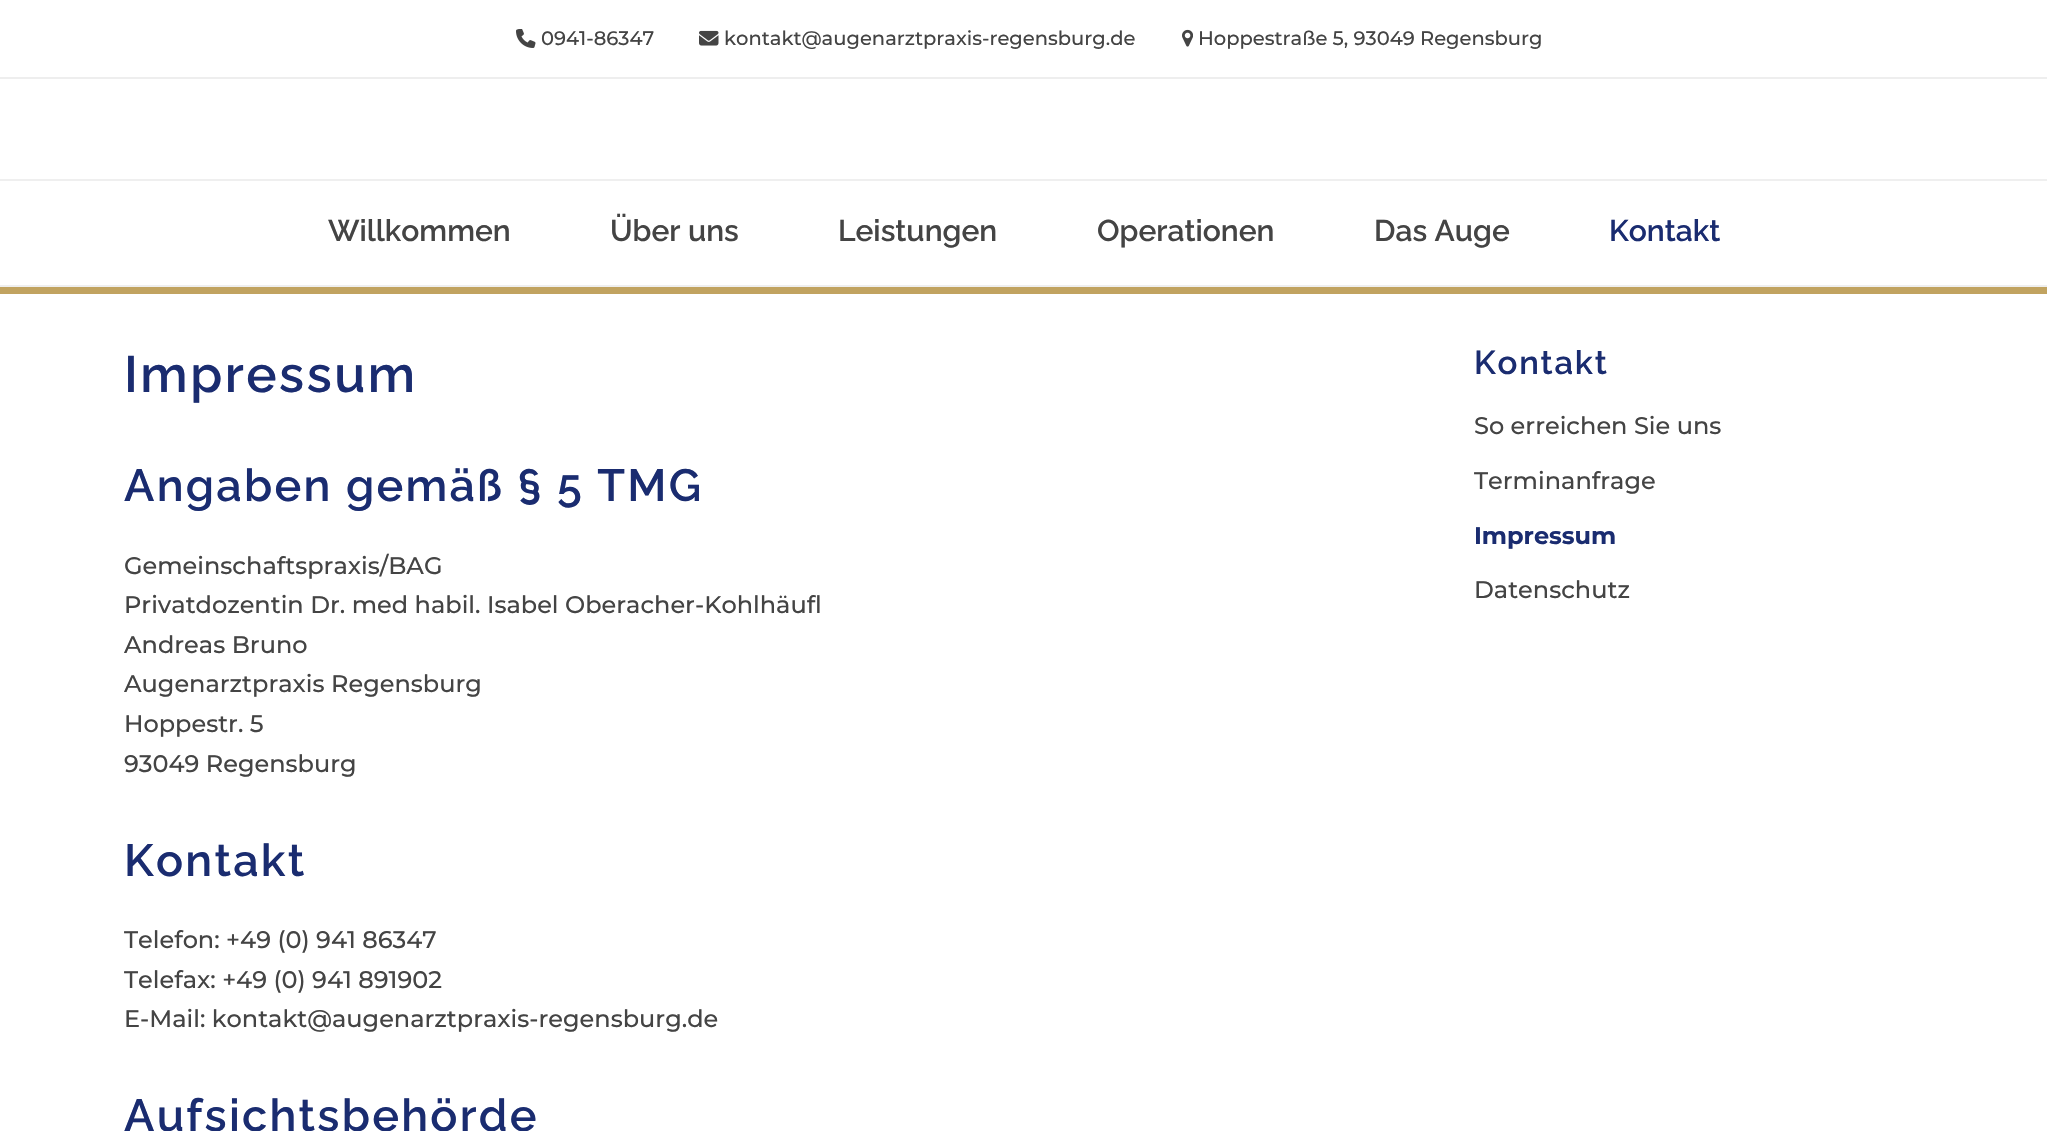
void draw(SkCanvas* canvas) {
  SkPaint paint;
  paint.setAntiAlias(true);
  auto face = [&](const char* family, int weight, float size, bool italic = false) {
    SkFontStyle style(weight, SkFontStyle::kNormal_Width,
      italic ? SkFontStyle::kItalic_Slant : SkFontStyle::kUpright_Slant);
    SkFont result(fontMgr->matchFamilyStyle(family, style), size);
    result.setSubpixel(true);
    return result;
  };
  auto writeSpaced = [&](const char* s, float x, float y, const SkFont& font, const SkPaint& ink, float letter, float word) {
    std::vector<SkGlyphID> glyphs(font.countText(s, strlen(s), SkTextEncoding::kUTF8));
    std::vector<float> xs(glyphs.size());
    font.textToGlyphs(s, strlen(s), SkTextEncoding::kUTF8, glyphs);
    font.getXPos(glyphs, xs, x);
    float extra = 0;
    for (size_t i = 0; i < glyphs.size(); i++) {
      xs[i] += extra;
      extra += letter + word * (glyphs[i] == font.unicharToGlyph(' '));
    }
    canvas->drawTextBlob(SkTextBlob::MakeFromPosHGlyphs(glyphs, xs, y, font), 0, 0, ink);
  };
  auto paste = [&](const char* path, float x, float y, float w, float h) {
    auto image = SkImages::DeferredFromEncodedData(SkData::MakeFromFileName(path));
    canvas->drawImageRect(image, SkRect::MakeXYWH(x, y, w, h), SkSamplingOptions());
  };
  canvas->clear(0xffffffff);
  paint.setColor(0xffeeeeee);
  canvas->drawRect(SkRect::MakeXYWH(0, 77, 2047, 2), paint);
  paste("img/1.png", 516, 29, 20, 19);
  paste("img/2.png", 699, 30, 20, 16);
  paste("img/3.png", 1182, 29, 11, 18);
  {
    const struct { float x, y, w, h; SkColor color; } items[] = {
      {0, 287, 2047, 7, 0xffc1a360},
      {0, 179, 2047, 2, 0xffefefef},
      {0, 285, 2047, 2, 0xffefefef},
    };
    for (auto [x, y, w, h, color] : items) {
      paint.setColor(color);
      canvas->drawRect(SkRect::MakeXYWH(x, y, w, h), paint);
    }
  }
  auto f0 = face("Montserrat", 500, 19.5f);
  paint.setColor(0xff444444);
  {
    const struct { const char* s; float x, y; } items[] = {
      {"0941-86347", 541, 45},
      {"kontakt@augenarztpraxis-regensburg.de", 724, 45},
      {"Hoppestraße 5, 93049 Regensburg", 1198, 45},
    };
    for (auto [s, x, y] : items) {
      canvas->drawString(s, x, y, f0, paint);
    }
  }
  auto f1 = face("Raleway", 600, 30);
  {
    const struct { const char* s; float x, y; } items[] = {
      {"Willkommen", 328, 241},
      {"Über uns", 610, 241},
      {"Leistungen", 838, 241},
      {"Operationen", 1097, 241},
      {"Das Auge", 1374, 241},
    };
    for (auto [s, x, y] : items) {
      canvas->drawString(s, x, y, f1, paint);
    }
  }
  paint.setColor(0xff1a2c70);
  canvas->drawString("Kontakt", 1609, 241, f1, paint);
  auto f2 = face("Raleway", 600, 51);
  writeSpaced("Impressum", 124, 392, f2, paint, 2.5f, 0);
  auto f3 = face("Raleway", 600, 45);
  writeSpaced("Angaben gemäß § 5 TMG", 124, 501, f3, paint, 2.25f, 0);
  auto f4 = face("Montserrat", 500, 24);
  paint.setColor(0xff444444);
  {
    const struct { const char* s; float x, y; } items[] = {
      {"Gemeinschaftspraxis/BAG", 124, 574},
      {"Privatdozentin Dr. med habil. Isabel Oberacher-Kohlhäufl", 124, 613},
      {"Andreas Bruno", 124, 653},
      {"Augenarztpraxis Regensburg", 124, 692},
      {"Hoppestr. 5", 124, 732},
      {"93049 Regensburg", 124, 772},
    };
    for (auto [s, x, y] : items) {
      canvas->drawString(s, x, y, f4, paint);
    }
  }
  paint.setColor(0xff1a2c70);
  writeSpaced("Kontakt", 124, 876, f3, paint, 2.25f, 0);
  paint.setColor(0xff444444);
  {
    const struct { const char* s; float x, y; } items[] = {
      {"Telefon: +49 (0) 941 86347", 124, 948},
      {"Telefax: +49 (0) 941 891902", 124, 988},
      {"E-Mail: kontakt@augenarztpraxis-regensburg.de", 124, 1027},
    };
    for (auto [s, x, y] : items) {
      canvas->drawString(s, x, y, f4, paint);
    }
  }
  paint.setColor(0xff1a2c70);
  writeSpaced("Aufsichtsbehörde", 124, 1131, f3, paint, 2.25f, 0);
  auto f5 = face("Raleway", 600, 33);
  writeSpaced("Kontakt", 1474, 374, f5, paint, 1.75f, 0);
  paint.setColor(0xff444444);
  canvas->drawString("So erreichen Sie uns", 1474, 434, f4, paint);
  canvas->drawString("Terminanfrage", 1474, 489, f4, paint);
  auto f6 = face("Montserrat", 700, 24);
  paint.setColor(0xff1a2c70);
  canvas->drawString("Impressum", 1474, 544, f6, paint);
  paint.setColor(0xff444444);
  canvas->drawString("Datenschutz", 1474, 598, f4, paint);
}
